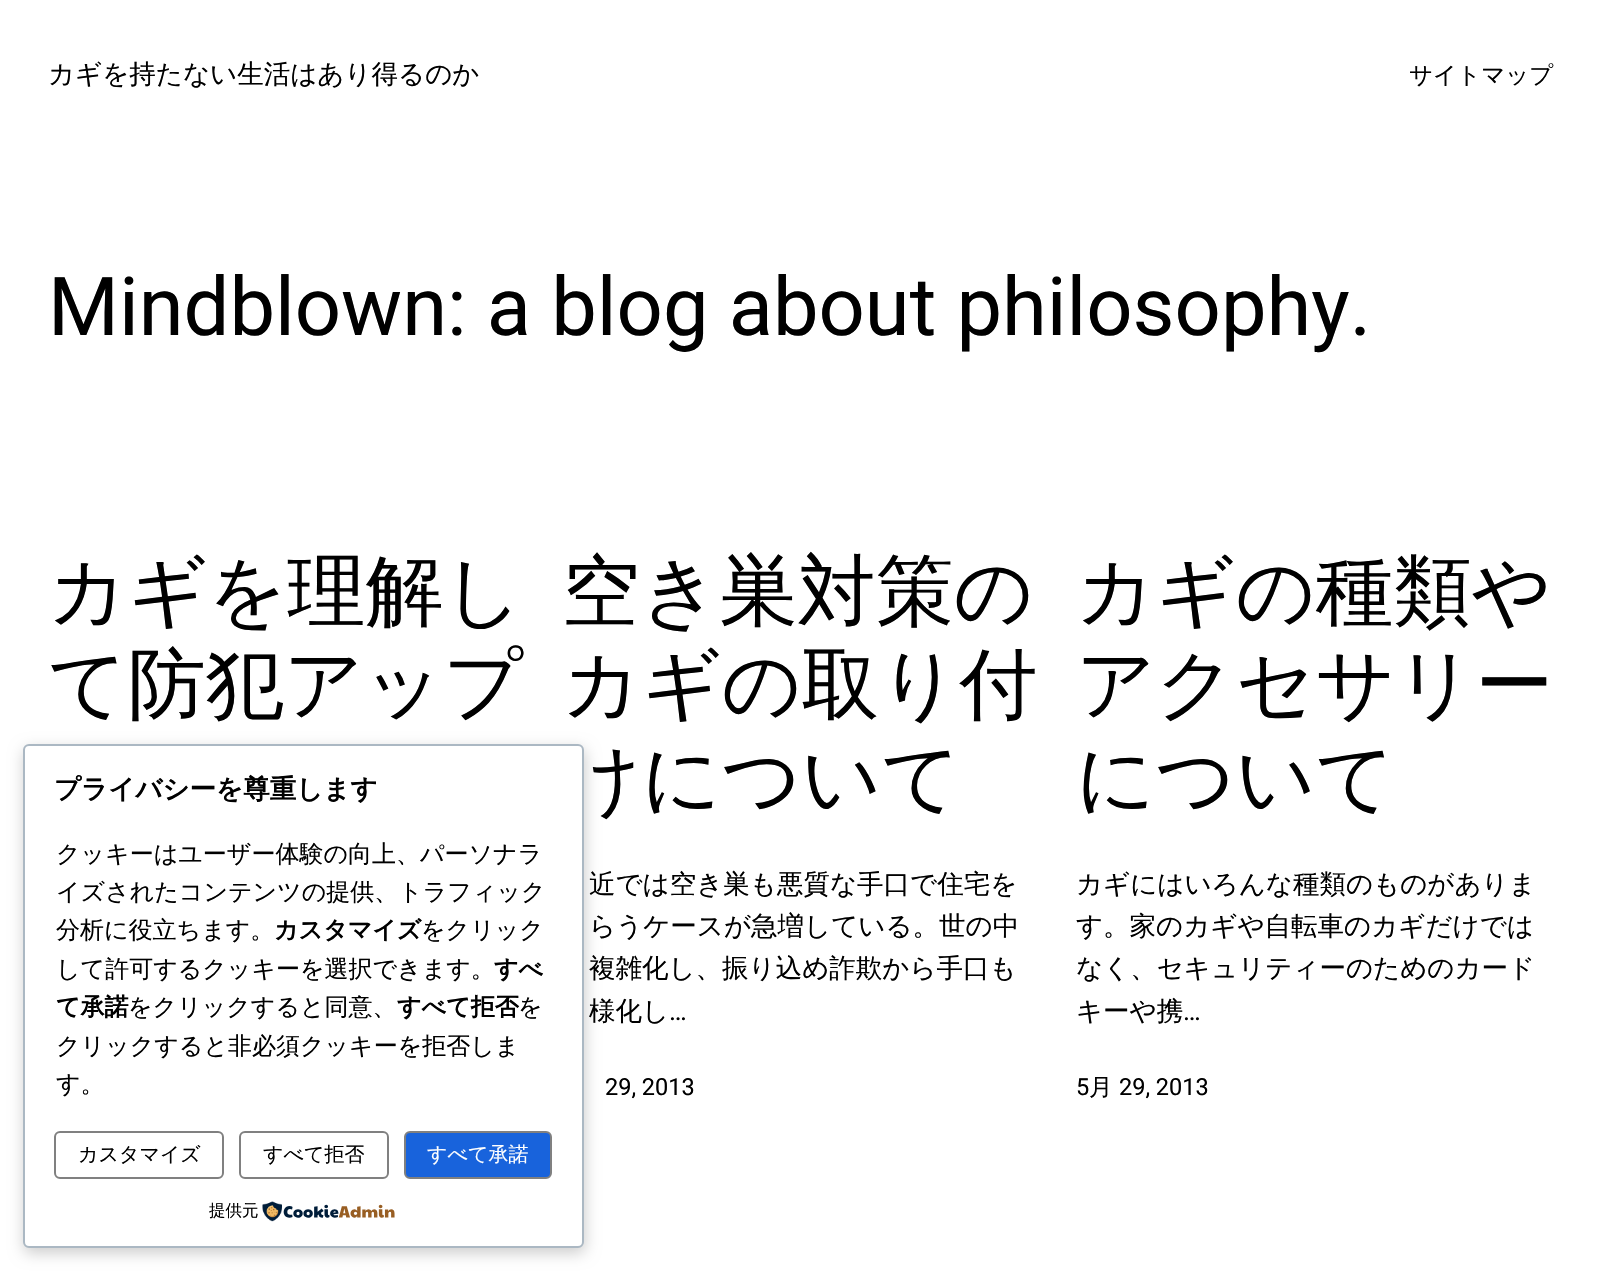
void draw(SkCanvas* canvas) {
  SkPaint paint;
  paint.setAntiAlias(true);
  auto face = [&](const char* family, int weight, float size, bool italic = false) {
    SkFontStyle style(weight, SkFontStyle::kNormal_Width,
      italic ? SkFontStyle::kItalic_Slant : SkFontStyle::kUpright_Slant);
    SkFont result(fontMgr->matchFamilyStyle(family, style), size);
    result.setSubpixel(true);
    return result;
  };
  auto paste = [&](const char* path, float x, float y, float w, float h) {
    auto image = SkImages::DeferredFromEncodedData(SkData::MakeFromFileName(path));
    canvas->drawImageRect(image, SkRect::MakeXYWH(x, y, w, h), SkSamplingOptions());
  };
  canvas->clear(0xffffffff);
  paint.setColor(0x33000000);
  paint.setMaskFilter(SkMaskFilter::MakeBlur(kNormal_SkBlurStyle, 7.5f));
  canvas->drawRoundRect(SkRect::MakeXYWH(24, 749, 561, 504), 6, 6, paint);
  paint.setMaskFilter(nullptr);
  auto f0 = face("WenQuanYi Zen Hei", 500, 26.5f);
  paint.setColor(0xff000000);
  canvas->drawString("カギを持たない生活はあり得るのか", 48, 83, f0, paint);
  auto f1 = face("WenQuanYi Zen Hei", 500, 23.5f);
  canvas->drawString("サイトマップ", 1409, 83, f1, paint);
  auto f2 = face("Roboto", 400, 81.25f);
  canvas->drawString("Mindblown: a blog about philosophy.", 48, 335, f2, paint);
  auto f3 = face("WenQuanYi Zen Hei", 500, 78);
  {
    const struct { const char* s; float x, y; } items[] = {
      {"カギを理解し", 48, 618},
      {"て防犯アップ", 48, 711},
      {"空き巣対策の", 562, 618},
      {"カギの取り付", 562, 711},
      {"けについて", 562, 805},
    };
    for (auto [s, x, y] : items) {
      canvas->drawString(s, x, y, f3, paint);
    }
  }
  {
    const struct { const char* s; float x, y; } items[] = {
      {"近では空き巣も悪質な手口で住宅を", 589, 893},
      {"らうケースが急増している。世の中", 589, 935},
      {"複雑化し、振り込め詐欺から手口も", 589, 977},
      {"様化し", 589, 1020},
    };
    for (auto [s, x, y] : items) {
      canvas->drawString(s, x, y, f0, paint);
    }
  }
  auto f4 = face("Roboto", 400, 26.5f);
  canvas->drawString("…", 669, 1020, f4, paint);
  auto f5 = face("Roboto", 400, 23.5f);
  canvas->drawString("29, 2013", 605, 1095, f5, paint);
  {
    const struct { const char* s; float x, y; } items[] = {
      {"カギの種類や", 1076, 618},
      {"アクセサリー", 1076, 711},
      {"について", 1076, 805},
    };
    for (auto [s, x, y] : items) {
      canvas->drawString(s, x, y, f3, paint);
    }
  }
  {
    const struct { const char* s; float x, y; } items[] = {
      {"カギにはいろんな種類のものがありま", 1076, 893},
      {"す。家のカギや自転車のカギだけでは", 1076, 935},
      {"なく、セキュリティーのためのカード", 1076, 977},
      {"キーや携", 1076, 1020},
    };
    for (auto [s, x, y] : items) {
      canvas->drawString(s, x, y, f0, paint);
    }
  }
  canvas->drawString("…", 1183, 1020, f4, paint);
  canvas->drawString("5", 1076, 1095, f5, paint);
  canvas->drawString("月", 1089, 1095, f1, paint);
  canvas->drawString("29, 2013", 1119, 1095, f5, paint);
  paint.setColor(0xffffffff);
  canvas->drawRoundRect(SkRect::MakeXYWH(24, 745, 559, 502), 5, 5, paint);
  paint.setStroke(true);
  paint.setStrokeWidth(2);
  paint.setColor(0xffabb8c3);
  canvas->drawRoundRect(SkRect::MakeXYWH(24, 745, 559, 502), 5, 5, paint);
  auto f6 = face("WenQuanYi Zen Hei", 700, 26.5f);
  paint.setStroke(false);
  paint.setColor(0xff000000);
  canvas->drawString("プライバシーを尊重します", 54, 798, f6, paint);
  auto f7 = face("WenQuanYi Zen Hei", 500, 24);
  {
    const struct { const char* s; float x, y; } items[] = {
      {"クッキーはユーザー体験の向上、パーソナラ", 56, 862},
      {"イズされたコンテンツの提供、トラフィック", 56, 900},
      {"分析に役立ちます。", 56, 938},
    };
    for (auto [s, x, y] : items) {
      canvas->drawString(s, x, y, f7, paint);
    }
  }
  auto f8 = face("WenQuanYi Zen Hei", 700, 24);
  canvas->drawString("カスタマイズ", 274, 938, f8, paint);
  canvas->drawString("をクリック", 421, 938, f7, paint);
  canvas->drawString("して許可するクッキーを選択できます。", 56, 977, f7, paint);
  canvas->drawString("すべ", 494, 977, f8, paint);
  canvas->drawString("て承諾", 56, 1015, f8, paint);
  canvas->drawString("をクリックすると同意、", 128, 1015, f7, paint);
  canvas->drawString("すべて拒否", 397, 1015, f8, paint);
  {
    const struct { const char* s; float x, y; } items[] = {
      {"を", 518, 1015},
      {"クリックすると非必須クッキーを拒否しま", 56, 1054},
      {"す。", 56, 1092},
    };
    for (auto [s, x, y] : items) {
      canvas->drawString(s, x, y, f7, paint);
    }
  }
  paint.setStroke(true);
  paint.setColor(0xff808080);
  canvas->drawRoundRect(SkRect::MakeXYWH(55, 1132, 168, 46), 5, 5, paint);
  auto f9 = face("WenQuanYi Zen Hei", 500, 20);
  paint.setStroke(false);
  paint.setColor(0xff000000);
  canvas->drawString("カスタマイズ", 78, 1161, f9, paint);
  paint.setStroke(true);
  paint.setColor(0xff808080);
  canvas->drawRoundRect(SkRect::MakeXYWH(240, 1132, 148, 46), 5, 5, paint);
  paint.setStroke(false);
  paint.setColor(0xff000000);
  canvas->drawString("すべて拒否", 263, 1161, f9, paint);
  paint.setColor(0xff1863dc);
  canvas->drawRoundRect(SkRect::MakeXYWH(405, 1132, 146, 46), 5, 5, paint);
  paint.setStroke(true);
  paint.setColor(0xff808080);
  canvas->drawRoundRect(SkRect::MakeXYWH(405, 1132, 146, 46), 5, 5, paint);
  paint.setStroke(false);
  paint.setColor(0xffffffff);
  canvas->drawString("すべて承諾", 427, 1161, f9, paint);
  auto f10 = face("WenQuanYi Zen Hei", 500, 16.5f);
  paint.setColor(0xff000000);
  canvas->drawString("提供元", 209, 1216, f10, paint);
  paste("img/1.png", 262, 1201, 133, 21);
}
